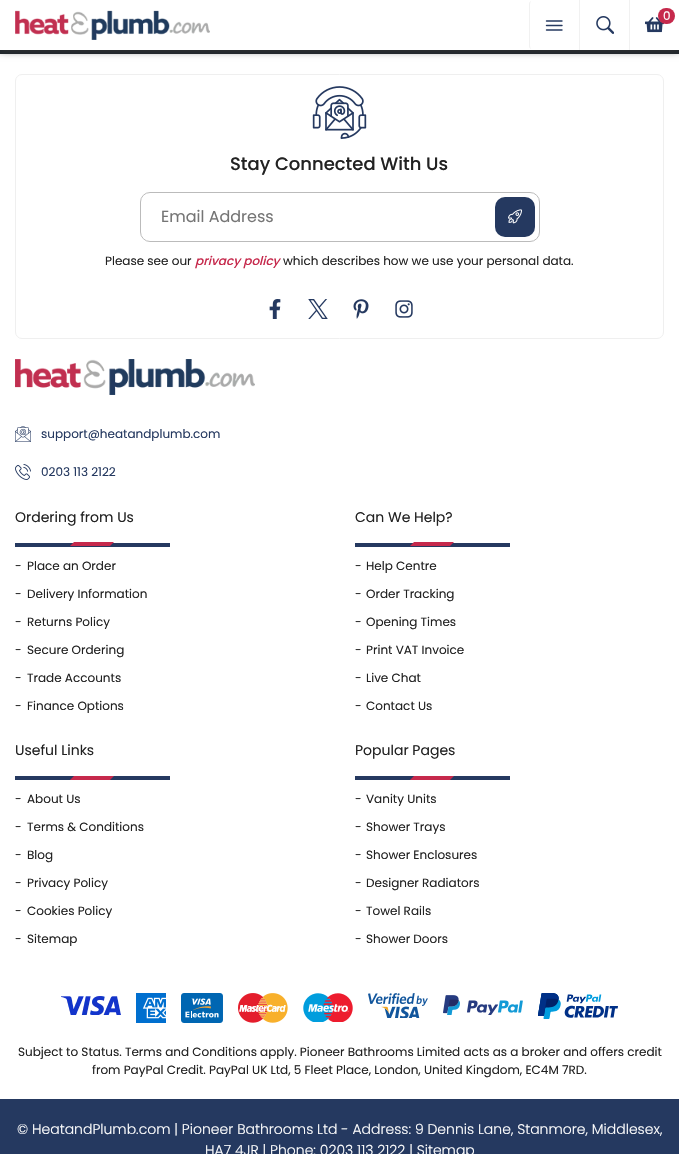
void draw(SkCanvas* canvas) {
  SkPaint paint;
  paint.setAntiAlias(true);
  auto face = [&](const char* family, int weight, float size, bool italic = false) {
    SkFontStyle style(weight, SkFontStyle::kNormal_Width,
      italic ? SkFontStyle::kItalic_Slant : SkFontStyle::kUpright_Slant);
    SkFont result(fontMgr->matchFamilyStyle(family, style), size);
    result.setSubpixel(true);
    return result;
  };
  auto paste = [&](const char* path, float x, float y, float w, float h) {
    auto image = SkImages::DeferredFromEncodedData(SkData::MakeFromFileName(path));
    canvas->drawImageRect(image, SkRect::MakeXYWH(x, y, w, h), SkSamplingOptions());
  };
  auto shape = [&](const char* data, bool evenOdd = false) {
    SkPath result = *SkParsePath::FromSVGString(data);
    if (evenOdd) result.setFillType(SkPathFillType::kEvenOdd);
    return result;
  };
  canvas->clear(0xff1e252b);
  paint.setColor(0xffffffff);
  canvas->drawRect(SkRect::MakeXYWH(0, 54, 679, 1045), paint);
  paint.setColor(0xff333333);
  paint.setMaskFilter(SkMaskFilter::MakeBlur(kNormal_SkBlurStyle, 4));
  canvas->drawRect(SkRect::MakeXYWH(0, 0, 679, 50), paint);
  paint.setMaskFilter(nullptr);
  paint.setColor(0xffffffff);
  canvas->drawRect(SkRect::MakeXYWH(0, 0, 679, 50), paint);
  paste("img/1.png", 15, 10, 195, 30);
  paint.setStroke(true);
  paint.setStrokeWidth(1);
  paint.setColor(0xfff1f1f1);
  canvas->drawPath(shape("M530.5 48.5C530 48 529.5 47 529.5 46V4C529.5 3 530 2 530.5 1.5"), paint);
  paint.setStrokeWidth(1.4f);
  paint.setStrokeCap(SkPaint::kRound_Cap);
  paint.setColor(0xff253960);
  canvas->drawPath(shape("M546.5 21H562M546.5 25.5H562M546.5 30H562"), paint);
  paint.setStroke(false);
  paint.setColor(0xfff1f1f1);
  canvas->drawRect(SkRect::MakeXYWH(579, 0, 1, 50), paint);
  paste("img/2.png", 596, 16, 18, 18);
  canvas->drawRect(SkRect::MakeXYWH(629, 0, 1, 50), paint);
  paste("img/3.png", 645, 17, 19, 16);
  paint.setColor(0xffc6294c);
  canvas->drawRoundRect(SkRect::MakeXYWH(658, 8, 17, 16), 8, 8, paint);
  paint.setStroke(true);
  paint.setStrokeWidth(1);
  paint.setStrokeCap(SkPaint::kButt_Cap);
  paint.setColor(0xffefefef);
  canvas->drawRoundRect(SkRect::MakeXYWH(15.5f, 74.5f, 648, 264), 6.5f, 6.5f, paint);
  paste("img/4.png", 312, 86, 55, 53);
  paint.setColor(0xffbbbbbb);
  canvas->drawRoundRect(SkRect::MakeXYWH(140.5f, 192.5f, 399, 49), 9.5f, 9.5f, paint);
  paint.setStroke(false);
  paint.setColor(0xff253960);
  canvas->drawRoundRect(SkRect::MakeXYWH(495, 197, 40, 40), 10, 10, paint);
  paste("img/5.png", 508, 209, 14, 15);
  paste("img/6.png", 269, 299, 12, 20);
  paste("img/7.png", 308, 299, 20, 20);
  paste("img/8.png", 353, 299, 16, 20);
  paste("img/9.png", 395, 300, 18, 18);
  paste("img/10.png", 15, 359, 240, 36);
  paste("img/11.png", 15, 426, 16, 16);
  paste("img/12.png", 15, 464, 16, 16);
  canvas->drawRect(SkRect::MakeXYWH(15, 543, 155, 4), paint);
  paint.setColor(0xffc6294c);
  canvas->drawPath(shape("M74 542H114L110 546H70Z"), paint);
  paint.setColor(0xff253960);
  canvas->drawRect(SkRect::MakeXYWH(355, 543, 155, 4), paint);
  paint.setColor(0xffc6294c);
  canvas->drawPath(shape("M414 542H454L450 546H410Z"), paint);
  paint.setColor(0xff253960);
  canvas->drawRect(SkRect::MakeXYWH(15, 776, 155, 4), paint);
  paint.setColor(0xffc6294c);
  canvas->drawPath(shape("M74 776H114L110 780H70Z"), paint);
  paint.setColor(0xff253960);
  canvas->drawRect(SkRect::MakeXYWH(355, 776, 155, 4), paint);
  paint.setColor(0xffc6294c);
  canvas->drawPath(shape("M414 776H454L450 780H410Z"), paint);
  paste("img/13.png", 61, 996, 60, 19);
  paste("img/14.png", 136, 993, 30, 30);
  paste("img/15.png", 181, 993, 42, 30);
  paste("img/16.png", 238, 993, 50, 30);
  paste("img/17.png", 303, 993, 50, 29);
  paste("img/18.png", 368, 993, 60, 25);
  paste("img/19.png", 443, 995, 80, 20);
  paste("img/20.png", 538, 993, 80, 26);
  paint.setColor(0xff253960);
  canvas->drawRect(SkRect::MakeXYWH(0, 1099, 679, 55), paint);
  auto f0 = face("Poppins", 400, 12);
  paint.setColor(0xffffffff);
  canvas->drawString("0", 663, 20, f0, paint);
  auto f1 = face("Poppins", 500, 18);
  paint.setColor(0xff222222);
  canvas->drawString("Stay Connected With Us", 230, 170, f1, paint);
  auto f2 = face("Poppins", 400, 16);
  paint.setColor(0xff757575);
  canvas->drawString("Email Address", 161, 222, f2, paint);
  paint.setColor(0xff222222);
  canvas->drawString("Please see our", 105, 265, f0, paint);
  auto f3 = face("Poppins", 500, 12, true);
  paint.setColor(0xffc6294c);
  canvas->drawString("privacy policy", 195, 265, f3, paint);
  paint.setColor(0xff222222);
  canvas->drawString("which describes how we use your personal data.", 283, 265, f0, paint);
  paint.setColor(0xff253960);
  canvas->drawString("support@heatandplumb.com", 41, 438, f0, paint);
  canvas->drawString("0203 113 2122", 41, 476, f0, paint);
  auto f4 = face("Poppins", 400, 14);
  paint.setColor(0xff222222);
  canvas->drawString("Ordering from Us", 15, 522, f4, paint);
  {
    const struct { const char* s; float x, y; } items[] = {
      {"-", 15, 570},
      {"Place an Order", 27, 570},
      {"-", 15, 598},
      {"Delivery Information", 27, 598},
      {"-", 15, 626},
      {"Returns Policy", 27, 626},
      {"-", 15, 654},
      {"Secure Ordering", 27, 654},
      {"-", 15, 682},
      {"Trade Accounts", 27, 682},
      {"-", 15, 710},
      {"Finance Options", 27, 710},
    };
    for (auto [s, x, y] : items) {
      canvas->drawString(s, x, y, f0, paint);
    }
  }
  canvas->drawString("Can We Help?", 355, 522, f4, paint);
  {
    const struct { const char* s; float x, y; } items[] = {
      {"-", 355, 570},
      {"Help Centre", 366, 570},
      {"-", 355, 598},
      {"Order Tracking", 366, 598},
      {"-", 355, 626},
      {"Opening Times", 366, 626},
      {"-", 355, 654},
      {"Print VAT Invoice", 366, 654},
      {"-", 355, 682},
      {"Live Chat", 366, 682},
      {"-", 355, 710},
      {"Contact Us", 366, 710},
    };
    for (auto [s, x, y] : items) {
      canvas->drawString(s, x, y, f0, paint);
    }
  }
  canvas->drawString("Useful Links", 15, 755, f4, paint);
  {
    const struct { const char* s; float x, y; } items[] = {
      {"-", 15, 803},
      {"About Us", 27, 803},
      {"-", 15, 831},
      {"Terms & Conditions", 27, 831},
      {"-", 15, 859},
      {"Blog", 27, 859},
      {"-", 15, 887},
      {"Privacy Policy", 27, 887},
      {"-", 15, 915},
      {"Cookies Policy", 27, 915},
      {"-", 15, 943},
      {"Sitemap", 27, 943},
    };
    for (auto [s, x, y] : items) {
      canvas->drawString(s, x, y, f0, paint);
    }
  }
  canvas->drawString("Popular Pages", 355, 755, f4, paint);
  {
    const struct { const char* s; float x, y; } items[] = {
      {"-", 355, 803},
      {"Vanity Units", 366, 803},
      {"-", 355, 831},
      {"Shower Trays", 366, 831},
      {"-", 355, 859},
      {"Shower Enclosures", 366, 859},
      {"-", 355, 887},
      {"Designer Radiators", 366, 887},
      {"-", 355, 915},
      {"Towel Rails", 366, 915},
      {"-", 355, 943},
      {"Shower Doors", 366, 943},
      {"Subject to Status. Terms and Conditions apply. Pioneer Bathrooms Limited acts as a broker and offers credit", 18, 1056},
      {"from PayPal Credit. PayPal UK Ltd, 5 Fleet Place, London, United Kingdom, EC4M 7RD.", 92, 1074},
    };
    for (auto [s, x, y] : items) {
      canvas->drawString(s, x, y, f0, paint);
    }
  }
  auto f5 = face("Poppins", 300, 14);
  paint.setColor(0xffffffff);
  canvas->drawString("© HeatandPlumb.com | Pioneer Bathrooms Ltd - Address: 9 Dennis Lane, Stanmore, Middlesex,", 17, 1134, f5, paint);
  canvas->drawString("HA7 4JR | Phone: 0203 113 2122 | Sitemap", 205, 1155, f5, paint);
}
